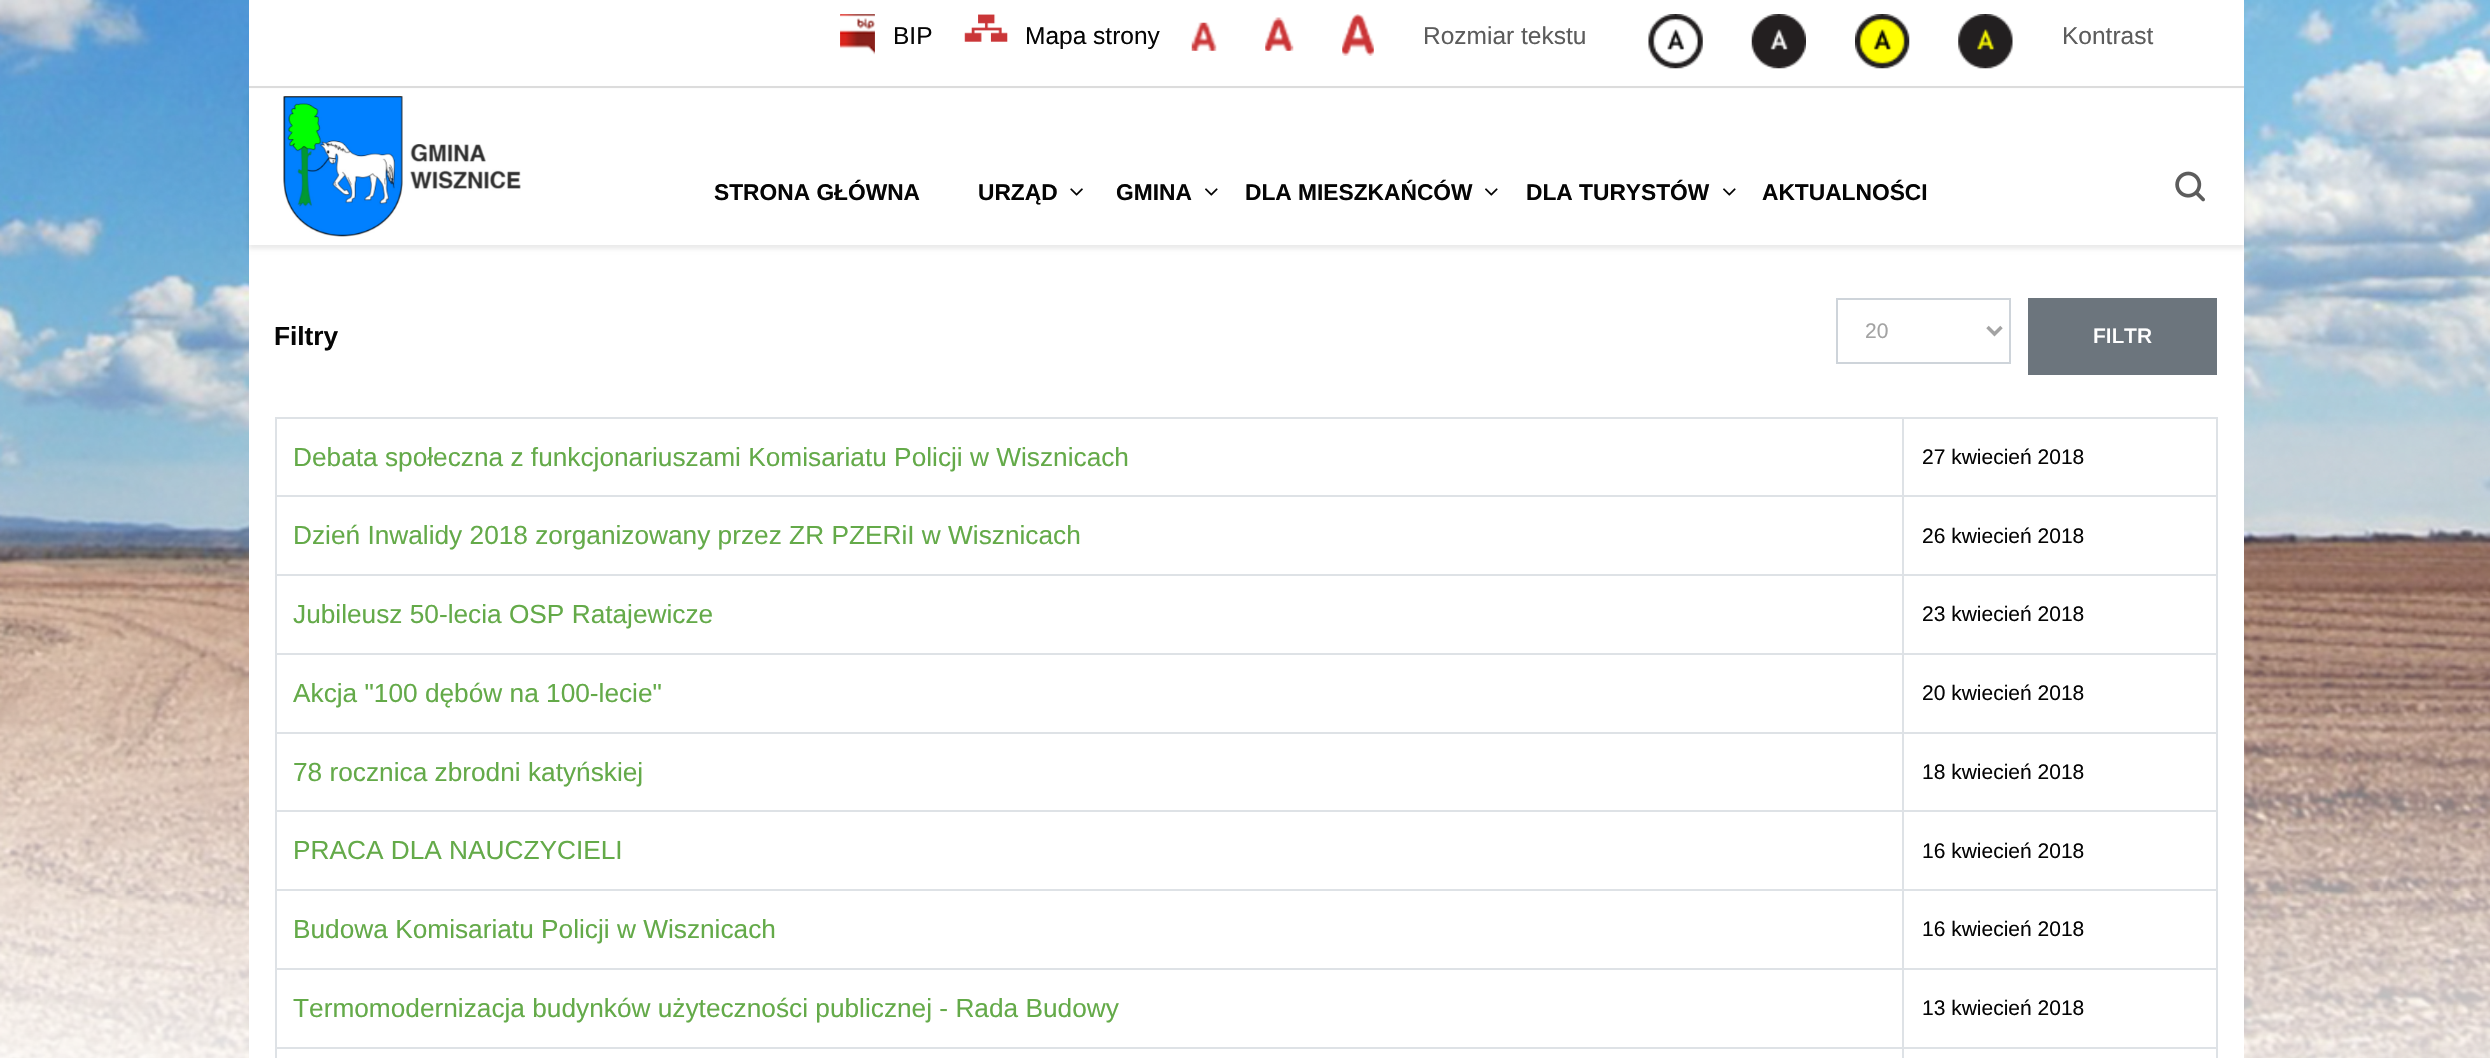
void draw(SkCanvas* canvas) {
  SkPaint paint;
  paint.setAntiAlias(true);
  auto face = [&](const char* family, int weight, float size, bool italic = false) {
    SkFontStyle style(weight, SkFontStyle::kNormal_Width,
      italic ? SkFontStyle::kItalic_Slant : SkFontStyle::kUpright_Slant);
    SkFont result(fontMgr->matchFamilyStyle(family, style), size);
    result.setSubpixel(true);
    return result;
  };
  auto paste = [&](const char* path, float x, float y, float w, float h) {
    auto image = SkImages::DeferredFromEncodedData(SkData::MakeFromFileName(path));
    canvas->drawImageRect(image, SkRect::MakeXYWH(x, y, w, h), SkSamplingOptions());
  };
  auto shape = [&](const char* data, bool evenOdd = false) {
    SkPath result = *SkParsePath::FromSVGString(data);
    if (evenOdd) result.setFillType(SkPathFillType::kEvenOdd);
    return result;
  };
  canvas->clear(0xffffffff);
  paste("img/1.png", 0, 0, 2490, 1058);
  paint.setColor(0xffffffff);
  canvas->drawRect(SkRect::MakeXYWH(249, 0, 1995, 1058), paint);
  paint.setColor(0xffdddddd);
  canvas->drawRect(SkRect::MakeXYWH(249, 86, 1995, 2), paint);
  paste("img/2.png", 840, 14, 35, 41);
  paste("img/3.png", 964, 14, 44, 28);
  paste("img/4.png", 1191, 22, 26, 29);
  paste("img/5.png", 1265, 17, 29, 34);
  paste("img/6.png", 1342, 14, 32, 42);
  paste("img/7.png", 1648, 14, 55, 55);
  paste("img/8.png", 1751, 14, 55, 55);
  paste("img/9.png", 1855, 14, 55, 55);
  paste("img/10.png", 1958, 14, 55, 55);
  paint.setColor(0x14000000);
  paint.setMaskFilter(SkMaskFilter::MakeBlur(kNormal_SkBlurStyle, 2));
  canvas->drawRect(SkRect::MakeXYWH(249, 91, 1995, 158), paint);
  paint.setMaskFilter(nullptr);
  paint.setColor(0xffffffff);
  canvas->drawRect(SkRect::MakeXYWH(249, 89, 1995, 156), paint);
  paste("img/11.png", 283, 96, 238, 141);
  paste("img/12.png", 1070, 188, 13, 8);
  paste("img/13.png", 1205, 188, 13, 8);
  paste("img/13.png", 1485, 188, 13, 8);
  paste("img/13.png", 1723, 188, 13, 8);
  paste("img/14.png", 2175, 171, 30, 31);
  paint.setStroke(true);
  paint.setStrokeWidth(2);
  paint.setColor(0xffced4da);
  canvas->drawRect(SkRect::MakeXYWH(1837, 299, 173, 64), paint);
  paint.setStrokeWidth(3.5f);
  paint.setColor(0xffa3a3a3);
  canvas->drawPath(shape("M1987.5 327L1994.5 334L2001.5 327"), paint);
  paint.setStroke(false);
  {
    const struct { float x, y, w, h; SkColor color; } items[] = {
      {2028, 298, 189, 77, 0xff6c757d},
      {1902, 417, 315, 2, 0xffdee2e6},
      {1902, 495, 315, 2, 0xffdee2e6},
      {1902, 574, 315, 2, 0xffdee2e6},
      {1902, 653, 315, 2, 0xffdee2e6},
      {1902, 732, 315, 2, 0xffdee2e6},
      {1902, 810, 315, 2, 0xffdee2e6},
      {1902, 889, 315, 2, 0xffdee2e6},
      {1902, 968, 315, 2, 0xffdee2e6},
      {1902, 1047, 315, 2, 0xffdee2e6},
      {1902, 1047, 2, 11, 0xffdee2e6},
      {275, 1047, 1629, 2, 0xffdee2e6},
      {1902, 968, 2, 80, 0xffdee2e6},
      {275, 968, 1629, 2, 0xffdee2e6},
      {1902, 889, 2, 81, 0xffdee2e6},
      {275, 889, 1629, 2, 0xffdee2e6},
      {1902, 810, 2, 81, 0xffdee2e6},
      {275, 810, 1629, 2, 0xffdee2e6},
      {1902, 732, 2, 80, 0xffdee2e6},
      {275, 732, 1629, 2, 0xffdee2e6},
      {1902, 653, 2, 80, 0xffdee2e6},
      {275, 653, 1629, 2, 0xffdee2e6},
      {1902, 574, 2, 81, 0xffdee2e6},
      {275, 574, 1629, 2, 0xffdee2e6},
      {1902, 495, 2, 81, 0xffdee2e6},
      {275, 495, 1629, 2, 0xffdee2e6},
      {1902, 417, 2, 80, 0xffdee2e6},
      {275, 417, 1629, 2, 0xffdee2e6},
      {275, 1047, 2, 11, 0xffdee2e6},
      {275, 968, 2, 80, 0xffdee2e6},
      {275, 889, 2, 81, 0xffdee2e6},
      {275, 810, 2, 81, 0xffdee2e6},
      {275, 732, 2, 80, 0xffdee2e6},
      {275, 653, 2, 80, 0xffdee2e6},
      {275, 574, 2, 81, 0xffdee2e6},
      {275, 495, 2, 81, 0xffdee2e6},
      {275, 417, 2, 80, 0xffdee2e6},
      {2216, 1047, 2, 11, 0xffdee2e6},
      {2216, 968, 2, 80, 0xffdee2e6},
      {2216, 889, 2, 81, 0xffdee2e6},
      {2216, 810, 2, 81, 0xffdee2e6},
      {2216, 732, 2, 80, 0xffdee2e6},
      {2216, 653, 2, 80, 0xffdee2e6},
      {2216, 574, 2, 81, 0xffdee2e6},
      {2216, 495, 2, 81, 0xffdee2e6},
      {2216, 417, 2, 80, 0xffdee2e6},
    };
    for (auto [x, y, w, h, color] : items) {
      paint.setColor(color);
      canvas->drawRect(SkRect::MakeXYWH(x, y, w, h), paint);
    }
  }
  auto f0 = face("Arimo", 400, 24.5f);
  paint.setColor(0xff050505);
  canvas->drawString("BIP", 893, 44, f0, paint);
  canvas->drawString("Mapa strony", 1025, 44, f0, paint);
  paint.setColor(0xff5c5c5c);
  canvas->drawString("Rozmiar tekstu", 1423, 44, f0, paint);
  canvas->drawString("Kontrast", 2062, 44, f0, paint);
  auto f1 = face("Arimo", 700, 22.75f);
  paint.setColor(0xff050505);
  {
    const struct { const char* s; float x, y; } items[] = {
      {"STRONA GŁÓWNA", 714, 200},
      {"URZĄD", 978, 200},
      {"GMINA", 1116, 200},
      {"DLA MIESZKAŃCÓW", 1245, 200},
      {"DLA TURYSTÓW", 1526, 200},
      {"AKTUALNOŚCI", 1762, 200},
    };
    for (auto [s, x, y] : items) {
      canvas->drawString(s, x, y, f1, paint);
    }
  }
  auto f2 = face("Arimo", 700, 26.25f);
  canvas->drawString("Filtry", 274, 345, f2, paint);
  auto f3 = face("Arimo", 400, 21);
  paint.setColor(0xffa3a3a3);
  canvas->drawString("20", 1865, 338, f3, paint);
  auto f4 = face("Arimo", 600, 21);
  paint.setColor(0xffffffff);
  canvas->drawString("FILTR", 2093, 343, f4, paint);
  auto f5 = face("Arimo", 400, 26.25f);
  paint.setColor(0xff64aa49);
  canvas->drawString("Debata społeczna z funkcjonariuszami Komisariatu Policji w Wisznicach", 293, 466, f5, paint);
  paint.setColor(0xff050505);
  canvas->drawString("27 kwiecień 2018", 1922, 464, f3, paint);
  paint.setColor(0xff64aa49);
  canvas->drawString("Dzień Inwalidy 2018 zorganizowany przez ZR PZERiI w Wisznicach", 293, 544, f5, paint);
  paint.setColor(0xff050505);
  canvas->drawString("26 kwiecień 2018", 1922, 543, f3, paint);
  paint.setColor(0xff64aa49);
  canvas->drawString("Jubileusz 50-lecia OSP Ratajewicze", 293, 623, f5, paint);
  paint.setColor(0xff050505);
  canvas->drawString("23 kwiecień 2018", 1922, 621, f3, paint);
  paint.setColor(0xff64aa49);
  canvas->drawString("Akcja \"100 dębów na 100-lecie\"", 293, 702, f5, paint);
  paint.setColor(0xff050505);
  canvas->drawString("20 kwiecień 2018", 1922, 700, f3, paint);
  paint.setColor(0xff64aa49);
  canvas->drawString("78 rocznica zbrodni katyńskiej", 293, 781, f5, paint);
  paint.setColor(0xff050505);
  canvas->drawString("18 kwiecień 2018", 1922, 779, f3, paint);
  paint.setColor(0xff64aa49);
  canvas->drawString("PRACA DLA NAUCZYCIELI", 293, 859, f5, paint);
  paint.setColor(0xff050505);
  canvas->drawString("16 kwiecień 2018", 1922, 858, f3, paint);
  paint.setColor(0xff64aa49);
  canvas->drawString("Budowa Komisariatu Policji w Wisznicach", 293, 938, f5, paint);
  paint.setColor(0xff050505);
  canvas->drawString("16 kwiecień 2018", 1922, 936, f3, paint);
  paint.setColor(0xff64aa49);
  canvas->drawString("Termomodernizacja budynków użyteczności publicznej - Rada Budowy", 293, 1017, f5, paint);
  paint.setColor(0xff050505);
  canvas->drawString("13 kwiecień 2018", 1922, 1015, f3, paint);
}
